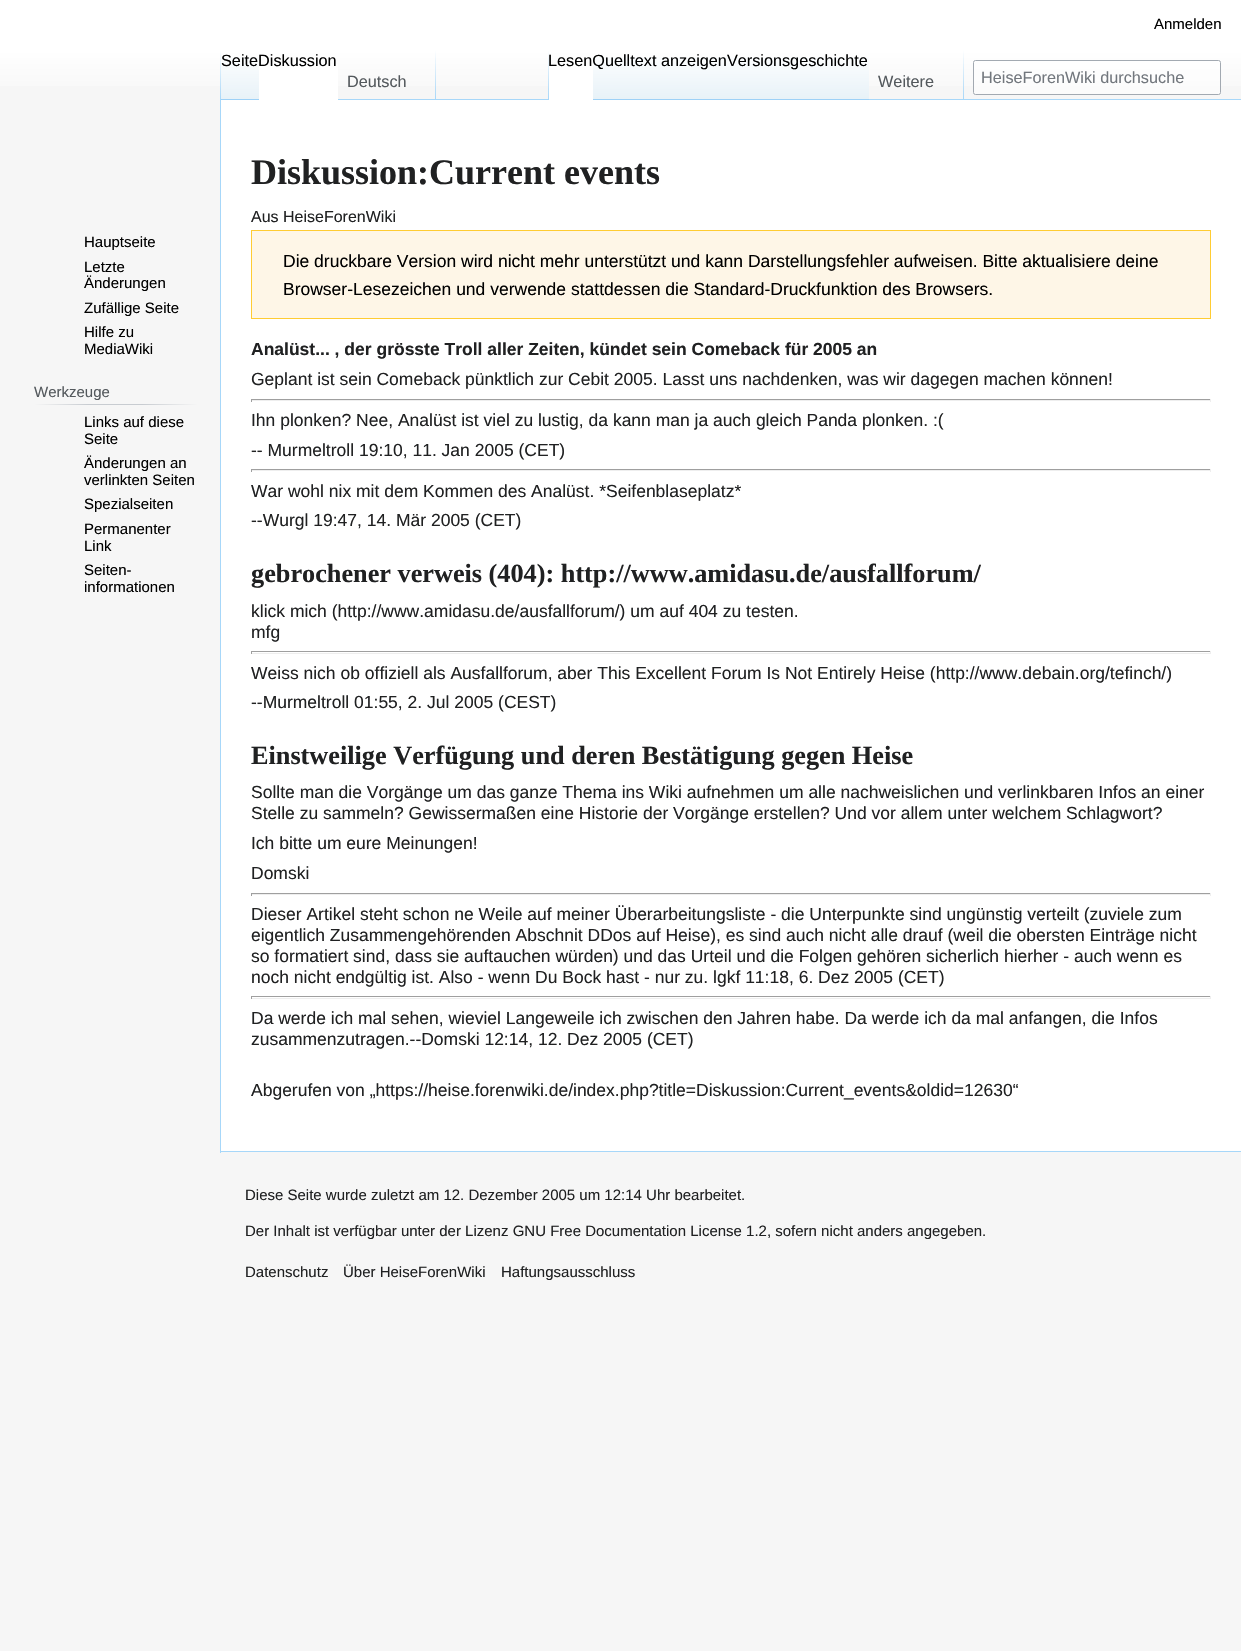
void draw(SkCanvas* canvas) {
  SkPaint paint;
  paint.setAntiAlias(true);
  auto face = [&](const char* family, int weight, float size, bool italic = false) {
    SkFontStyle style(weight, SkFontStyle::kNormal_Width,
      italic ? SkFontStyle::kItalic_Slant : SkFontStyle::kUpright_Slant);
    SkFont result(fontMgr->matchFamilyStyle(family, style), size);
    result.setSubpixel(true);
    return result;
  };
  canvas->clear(0xfff6f6f6);
  {
    const SkColor colors[] = {0xffffffff, 0xfff6f6f6};
    const float stops[] = {0.5f, 1};
    const SkPoint ends[] = {{621, 0}, {621, 100}};
    paint.setShader(SkGradientShader::MakeLinear(ends, colors, stops, 2, SkTileMode::kClamp));
    paint.setAlpha(255);
  }
  canvas->drawRect(SkRect::MakeXYWH(0, 0, 1241, 86), paint);
  paint.setShader(nullptr);
  paint.setColor(0xffa7d7f9);
  canvas->drawRect(SkRect::MakeXYWH(220, 1151, 1021, 1), paint);
  canvas->drawRect(SkRect::MakeXYWH(220, 99, 1, 1054), paint);
  {
    const SkColor colors[] = {0x00a7d7f9, 0xffa7d7f9};
    const float stops[] = {0, 1};
    const SkPoint ends[] = {{221, 50}, {221, 100}};
    paint.setShader(SkGradientShader::MakeLinear(ends, colors, stops, 2, SkTileMode::kClamp));
    paint.setAlpha(255);
  }
  canvas->drawRect(SkRect::MakeXYWH(220, 50, 1, 50), paint);
  {
    const SkColor colors[] = {0xff77c1f6, 0xffe8f2f8, 0xffffffff};
    const float stops[] = {0, 0.03f, 1};
    const SkPoint ends[] = {{240, 100}, {240, 50}};
    paint.setShader(SkGradientShader::MakeLinear(ends, colors, stops, 3, SkTileMode::kClamp));
    paint.setAlpha(255);
  }
  canvas->drawRect(SkRect::MakeXYWH(221, 57, 38, 43), paint);
  paint.setShader(nullptr);
  paint.setColor(0xffffffff);
  canvas->drawRect(SkRect::MakeXYWH(259, 64, 79, 36), paint);
  paint.setColor(0xffa7d7f9);
  canvas->drawRect(SkRect::MakeXYWH(338, 99, 903, 1), paint);
  {
    const SkColor colors[] = {0x00a7d7f9, 0xffa7d7f9};
    const float stops[] = {0, 1};
    const SkPoint ends[] = {{436, 50}, {436, 100}};
    paint.setShader(SkGradientShader::MakeLinear(ends, colors, stops, 2, SkTileMode::kClamp));
    paint.setAlpha(255);
  }
  canvas->drawRect(SkRect::MakeXYWH(435, 50, 1, 50), paint);
  {
    const SkColor colors[] = {0x00a7d7f9, 0xffa7d7f9};
    const float stops[] = {0, 1};
    const SkPoint ends[] = {{548, 50}, {548, 100}};
    paint.setShader(SkGradientShader::MakeLinear(ends, colors, stops, 2, SkTileMode::kClamp));
    paint.setAlpha(255);
  }
  canvas->drawRect(SkRect::MakeXYWH(548, 50, 1, 50), paint);
  paint.setShader(nullptr);
  paint.setColor(0xffffffff);
  canvas->drawRect(SkRect::MakeXYWH(549, 64, 44, 36), paint);
  {
    const SkColor colors[] = {0xff77c1f6, 0xffe8f2f8, 0xffffffff};
    const float stops[] = {0, 0.03f, 1};
    const SkPoint ends[] = {{660, 100}, {660, 50}};
    paint.setShader(SkGradientShader::MakeLinear(ends, colors, stops, 3, SkTileMode::kClamp));
    paint.setAlpha(255);
  }
  canvas->drawRect(SkRect::MakeXYWH(593, 57, 135, 43), paint);
  {
    const SkColor colors[] = {0xff77c1f6, 0xffe8f2f8, 0xffffffff};
    const float stops[] = {0, 0.03f, 1};
    const SkPoint ends[] = {{798, 100}, {798, 50}};
    paint.setShader(SkGradientShader::MakeLinear(ends, colors, stops, 3, SkTileMode::kClamp));
    paint.setAlpha(255);
  }
  canvas->drawRect(SkRect::MakeXYWH(728, 57, 141, 43), paint);
  {
    const SkColor colors[] = {0x00a7d7f9, 0xffa7d7f9};
    const float stops[] = {0, 1};
    const SkPoint ends[] = {{963, 50}, {963, 100}};
    paint.setShader(SkGradientShader::MakeLinear(ends, colors, stops, 2, SkTileMode::kClamp));
    paint.setAlpha(255);
  }
  canvas->drawRect(SkRect::MakeXYWH(963, 50, 1, 50), paint);
  paint.setShader(nullptr);
  paint.setColor(0x80ffffff);
  canvas->drawRoundRect(SkRect::MakeXYWH(973.5f, 60.5f, 247, 34), 2, 2, paint);
  paint.setStroke(true);
  paint.setStrokeWidth(1);
  paint.setColor(0xffa2a9b1);
  canvas->drawRoundRect(SkRect::MakeXYWH(973.5f, 60.5f, 247, 34), 2, 2, paint);
  paint.setStroke(false);
  {
    const SkColor colors[] = {0xfff6f6f6, 0xffc8ccd1, 0xffc8ccd1, 0xfff6f6f6};
    const float stops[] = {0, 0.33f, 0.66f, 1};
    const SkPoint ends[] = {{34, 404}, {198, 404}};
    paint.setShader(SkGradientShader::MakeLinear(ends, colors, stops, 4, SkTileMode::kClamp));
    paint.setAlpha(255);
  }
  canvas->drawRect(SkRect::MakeXYWH(34, 404, 164, 1), paint);
  paint.setShader(nullptr);
  paint.setColor(0xffffffff);
  canvas->drawRect(SkRect::MakeXYWH(221, 100, 1020, 1051), paint);
  paint.setColor(0xfffef6e7);
  canvas->drawRect(SkRect::MakeXYWH(251.5f, 230.5f, 959, 88), paint);
  paint.setStroke(true);
  paint.setColor(0xffffcc33);
  canvas->drawRect(SkRect::MakeXYWH(251.5f, 230.5f, 959, 88), paint);
  paint.setStroke(false);
  {
    const struct { float x, y, w, h; SkColor color; } items[] = {
      {251, 399, 960, 1, 0xff9f9f9f},
      {1210, 399, 1, 3, 0xffeeeeee},
      {251, 400, 960, 1, 0xffeeeeee},
      {251, 399, 1, 3, 0xff9f9f9f},
      {251, 469, 960, 1, 0xff9f9f9f},
      {1210, 469, 1, 3, 0xffeeeeee},
      {251, 470, 960, 1, 0xffeeeeee},
      {251, 469, 1, 3, 0xff9f9f9f},
      {251, 651, 960, 1, 0xff9f9f9f},
      {1210, 651, 1, 3, 0xffeeeeee},
      {251, 653, 960, 1, 0xffeeeeee},
      {251, 651, 1, 3, 0xff9f9f9f},
      {251, 893, 960, 1, 0xff9f9f9f},
      {1210, 893, 1, 3, 0xffeeeeee},
      {251, 894, 960, 1, 0xffeeeeee},
      {251, 893, 1, 3, 0xff9f9f9f},
      {251, 996, 960, 1, 0xff9f9f9f},
      {1210, 996, 1, 3, 0xffeeeeee},
      {251, 998, 960, 1, 0xffeeeeee},
      {251, 996, 1, 3, 0xff9f9f9f},
    };
    for (auto [x, y, w, h, color] : items) {
      paint.setColor(color);
      canvas->drawRect(SkRect::MakeXYWH(x, y, w, h), paint);
    }
  }
  auto f0 = face("Liberation Sans", 400, 15);
  paint.setColor(0xff000000);
  canvas->drawString("Anmelden", 1154, 29, f0, paint);
  auto f1 = face("Liberation Sans", 400, 16.25f);
  canvas->drawString("SeiteDiskussion", 221, 66, f1, paint);
  paint.setColor(0xff54595d);
  canvas->drawString("Deutsch", 347, 87, f1, paint);
  paint.setColor(0xff000000);
  canvas->drawString("LesenQuelltext anzeigenVersionsgeschichte", 548, 66, f1, paint);
  paint.setColor(0xff54595d);
  canvas->drawString("Weitere", 878, 87, f1, paint);
  paint.setColor(0xff72777d);
  canvas->drawString("HeiseForenWiki durchsuche", 981, 83, f1, paint);
  paint.setColor(0xff000000);
  {
    const struct { const char* s; float x, y; } items[] = {
      {"Hauptseite", 84, 247},
      {"Letzte", 84, 272},
      {"Änderungen", 84, 288},
      {"Zufällige Seite", 84, 313},
      {"Hilfe zu", 84, 337},
      {"MediaWiki", 84, 354},
    };
    for (auto [s, x, y] : items) {
      canvas->drawString(s, x, y, f0, paint);
    }
  }
  paint.setColor(0xff54595d);
  canvas->drawString("Werkzeuge", 34, 397, f0, paint);
  paint.setColor(0xff000000);
  {
    const struct { const char* s; float x, y; } items[] = {
      {"Links auf diese", 84, 427},
      {"Seite", 84, 444},
      {"Änderungen an", 84, 468},
      {"verlinkten Seiten", 84, 485},
      {"Spezialseiten", 84, 509},
      {"Permanenter", 84, 534},
      {"Link", 84, 551},
      {"Seiten-", 84, 575},
      {"informationen", 84, 592},
    };
    for (auto [s, x, y] : items) {
      canvas->drawString(s, x, y, f0, paint);
    }
  }
  auto f2 = face("Liberation Serif", 700, 36);
  paint.setColor(0xff202122);
  canvas->drawString("Diskussion:Current events", 251, 184, f2, paint);
  auto f3 = face("Liberation Sans", 400, 16);
  canvas->drawString("Aus HeiseForenWiki", 251, 222, f3, paint);
  auto f4 = face("Liberation Sans", 400, 17.5f);
  paint.setColor(0xff000000);
  canvas->drawString("Die druckbare Version wird nicht mehr unterstützt und kann Darstellungsfehler aufweisen. Bitte aktualisiere deine", 283, 267, f4, paint);
  canvas->drawString("Browser-Lesezeichen und verwende stattdessen die Standard-Druckfunktion des Browsers.", 283, 295, f4, paint);
  auto f5 = face("Liberation Sans", 700, 17.5f);
  paint.setColor(0xff202122);
  canvas->drawString("Analüst... , der grösste Troll aller Zeiten, kündet sein Comeback für 2005 an", 251, 355, f5, paint);
  {
    const struct { const char* s; float x, y; } items[] = {
      {"Geplant ist sein Comeback pünktlich zur Cebit 2005. Lasst uns nachdenken, was wir dagegen machen können!", 251, 385},
      {"Ihn plonken? Nee, Analüst ist viel zu lustig, da kann man ja auch gleich Panda plonken. :(", 251, 426},
      {"-- Murmeltroll 19:10, 11. Jan 2005 (CET)", 251, 456},
      {"War wohl nix mit dem Kommen des Analüst. *Seifenblaseplatz*", 251, 497},
      {"--Wurgl 19:47, 14. Mär 2005 (CET)", 251, 526},
    };
    for (auto [s, x, y] : items) {
      canvas->drawString(s, x, y, f4, paint);
    }
  }
  auto f6 = face("Liberation Serif", 700, 26.25f);
  canvas->drawString("gebrochener verweis (404): http://www.amidasu.de/ausfallforum/", 251, 582, f6, paint);
  {
    const struct { const char* s; float x, y; } items[] = {
      {"klick mich (http://www.amidasu.de/ausfallforum/) um auf 404 zu testen.", 251, 617},
      {"mfg", 251, 638},
      {"Weiss nich ob offiziell als Ausfallforum, aber This Excellent Forum Is Not Entirely Heise (http://www.debain.org/tefinch/)", 251, 679},
      {"--Murmeltroll 01:55, 2. Jul 2005 (CEST)", 251, 708},
    };
    for (auto [s, x, y] : items) {
      canvas->drawString(s, x, y, f4, paint);
    }
  }
  canvas->drawString("Einstweilige Verfügung und deren Bestätigung gegen Heise", 251, 764, f6, paint);
  {
    const struct { const char* s; float x, y; } items[] = {
      {"Sollte man die Vorgänge um das ganze Thema ins Wiki aufnehmen um alle nachweislichen und verlinkbaren Infos an einer", 251, 798},
      {"Stelle zu sammeln? Gewissermaßen eine Historie der Vorgänge erstellen? Und vor allem unter welchem Schlagwort?", 251, 819},
      {"Ich bitte um eure Meinungen!", 251, 849},
      {"Domski", 251, 879},
      {"Dieser Artikel steht schon ne Weile auf meiner Überarbeitungsliste - die Unterpunkte sind ungünstig verteilt (zuviele zum", 251, 920},
      {"eigentlich Zusammengehörenden Abschnit DDos auf Heise), es sind auch nicht alle drauf (weil die obersten Einträge nicht", 251, 941},
      {"so formatiert sind, dass sie auftauchen würden) und das Urteil und die Folgen gehören sicherlich hierher - auch wenn es", 251, 962},
      {"noch nicht endgültig ist. Also - wenn Du Bock hast - nur zu. lgkf 11:18, 6. Dez 2005 (CET)", 251, 983},
      {"Da werde ich mal sehen, wieviel Langeweile ich zwischen den Jahren habe. Da werde ich da mal anfangen, die Infos", 251, 1024},
      {"zusammenzutragen.--Domski 12:14, 12. Dez 2005 (CET)", 251, 1045},
      {"Abgerufen von „https://heise.forenwiki.de/index.php?title=Diskussion:Current_events&oldid=12630“", 251, 1096},
    };
    for (auto [s, x, y] : items) {
      canvas->drawString(s, x, y, f4, paint);
    }
  }
  {
    const struct { const char* s; float x, y; } items[] = {
      {"Diese Seite wurde zuletzt am 12. Dezember 2005 um 12:14 Uhr bearbeitet.", 245, 1200},
      {"Der Inhalt ist verfügbar unter der Lizenz GNU Free Documentation License 1.2, sofern nicht anders angegeben.", 245, 1236},
      {"Datenschutz", 245, 1277},
      {"Über HeiseForenWiki", 343, 1277},
      {"Haftungsausschluss", 501, 1277},
    };
    for (auto [s, x, y] : items) {
      canvas->drawString(s, x, y, f0, paint);
    }
  }
}
